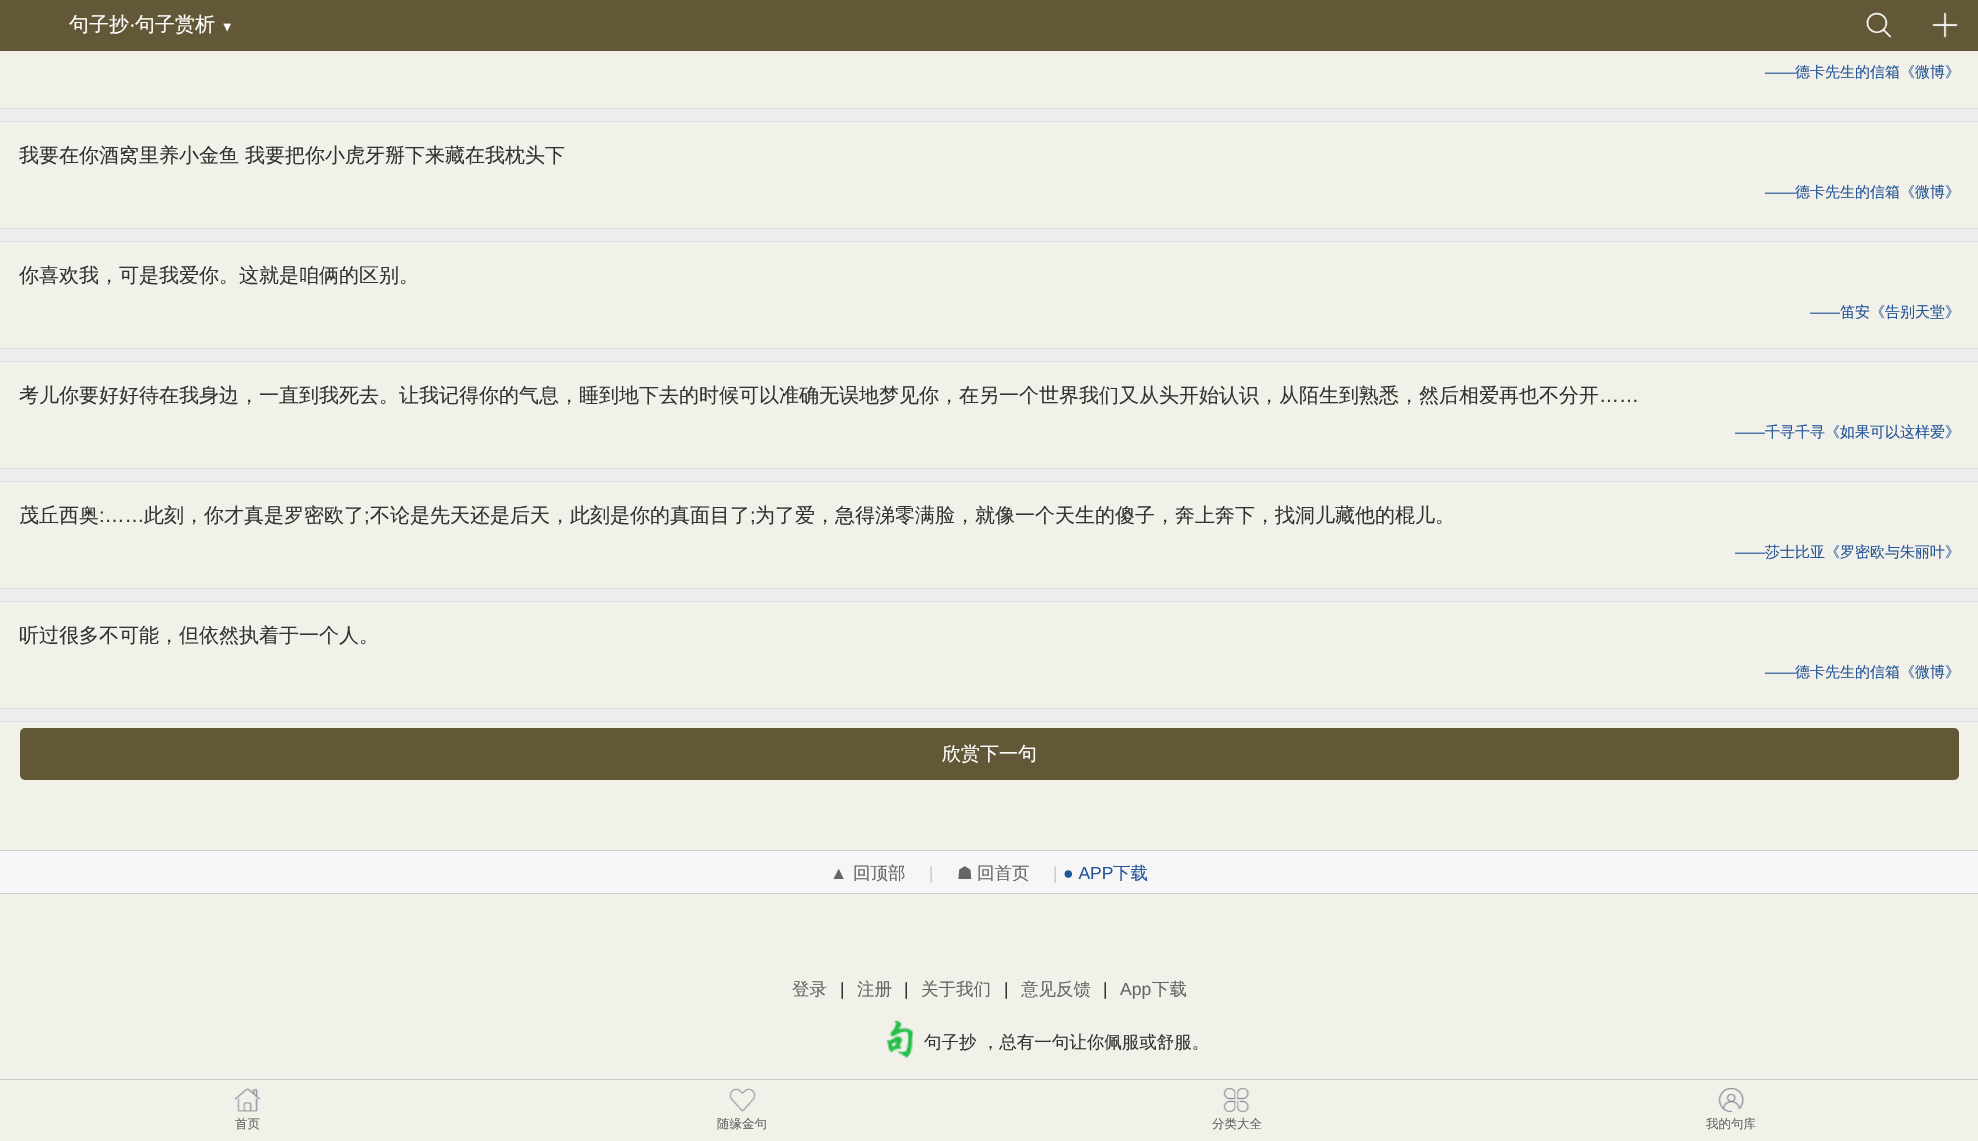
void draw(SkCanvas* canvas) {
  SkPaint paint;
  paint.setAntiAlias(true);
  auto face = [&](const char* family, int weight, float size, bool italic = false) {
    SkFontStyle style(weight, SkFontStyle::kNormal_Width,
      italic ? SkFontStyle::kItalic_Slant : SkFontStyle::kUpright_Slant);
    SkFont result(fontMgr->matchFamilyStyle(family, style), size);
    result.setSubpixel(true);
    return result;
  };
  auto paste = [&](const char* path, float x, float y, float w, float h) {
    auto image = SkImages::DeferredFromEncodedData(SkData::MakeFromFileName(path));
    canvas->drawImageRect(image, SkRect::MakeXYWH(x, y, w, h), SkSamplingOptions());
  };
  canvas->clear(0xfff1f0e9);
  paint.setColor(0xff625837);
  canvas->drawRect(SkRect::MakeXYWH(0, 0, 1978, 51), paint);
  paste("img/1.png", 1866, 12, 26, 26);
  paste("img/2.png", 1932, 12, 26, 26);
  {
    const struct { float x, y, w, h; SkColor color; } items[] = {
      {0, 109, 1978, 14, 0xffeeeeee},
      {0, 108, 1978, 1, 0xffdddddd},
      {0, 121, 1978, 1, 0xffdddddd},
      {0, 229, 1978, 14, 0xffeeeeee},
      {0, 228, 1978, 1, 0xffdddddd},
      {0, 241, 1978, 1, 0xffdddddd},
      {0, 349, 1978, 14, 0xffeeeeee},
      {0, 348, 1978, 1, 0xffdddddd},
      {0, 361, 1978, 1, 0xffdddddd},
      {0, 469, 1978, 14, 0xffeeeeee},
      {0, 468, 1978, 1, 0xffdddddd},
      {0, 481, 1978, 1, 0xffdddddd},
      {0, 589, 1978, 14, 0xffeeeeee},
      {0, 588, 1978, 1, 0xffdddddd},
      {0, 601, 1978, 1, 0xffdddddd},
      {0, 709, 1978, 14, 0xffeeeeee},
      {0, 708, 1978, 1, 0xffdddddd},
      {0, 721, 1978, 1, 0xffdddddd},
    };
    for (auto [x, y, w, h, color] : items) {
      paint.setColor(color);
      canvas->drawRect(SkRect::MakeXYWH(x, y, w, h), paint);
    }
  }
  paint.setColor(0xff625837);
  canvas->drawRoundRect(SkRect::MakeXYWH(20, 728, 1939, 52), 5, 5, paint);
  {
    const struct { float x, y, w, h; SkColor color; } items[] = {
      {0, 851, 1978, 42, 0xfff6f6f6},
      {0, 850, 1978, 1, 0xffcccccc},
      {0, 893, 1978, 1, 0xffcccccc},
    };
    for (auto [x, y, w, h, color] : items) {
      paint.setColor(color);
      canvas->drawRect(SkRect::MakeXYWH(x, y, w, h), paint);
    }
  }
  paste("img/3.png", 886, 1020, 28, 38);
  canvas->drawRect(SkRect::MakeXYWH(0, 1079, 1978, 1), paint);
  paste("img/4.png", 234, 1088, 27, 24);
  paste("img/5.png", 729, 1088, 27, 24);
  paste("img/6.png", 1223, 1088, 27, 25);
  paste("img/7.png", 1718, 1088, 27, 25);
  auto f0 = face("WenQuanYi Zen Hei", 500, 20);
  paint.setColor(0xffffffff);
  canvas->drawString("句子抄", 69, 31, f0, paint);
  auto f1 = face("Liberation Sans", 400, 20);
  canvas->drawString("·", 129, 31, f1, paint);
  canvas->drawString("句子赏析", 135, 31, f0, paint);
  auto f2 = face("Liberation Sans", 400, 12.5f);
  canvas->drawString("▼", 221, 31, f2, paint);
  auto f3 = face("Liberation Sans", 400, 15);
  paint.setColor(0xff225599);
  canvas->drawString("——", 1765, 77, f3, paint);
  auto f4 = face("WenQuanYi Zen Hei", 500, 15);
  canvas->drawString("德卡先生的信箱《微博》", 1795, 77, f4, paint);
  paint.setColor(0xff333333);
  canvas->drawString("我要在你酒窝里养小金鱼 我要把你小虎牙掰下来藏在我枕头下", 19, 162, f0, paint);
  paint.setColor(0xff225599);
  canvas->drawString("——", 1765, 197, f3, paint);
  canvas->drawString("德卡先生的信箱《微博》", 1795, 197, f4, paint);
  paint.setColor(0xff333333);
  canvas->drawString("你喜欢我，可是我爱你。这就是咱俩的区别。", 19, 282, f0, paint);
  paint.setColor(0xff225599);
  canvas->drawString("——", 1810, 317, f3, paint);
  canvas->drawString("笛安《告别天堂》", 1840, 317, f4, paint);
  paint.setColor(0xff333333);
  canvas->drawString("考儿你要好好待在我身边，一直到我死去。让我记得你的气息，睡到地下去的时候可以准确无误地梦见你，在另一个世界我们又从头开始认识，从陌生到熟悉，然后相爱再也不分开", 19, 402, f0, paint);
  canvas->drawString("……", 1599, 402, f1, paint);
  paint.setColor(0xff225599);
  canvas->drawString("——", 1735, 437, f3, paint);
  canvas->drawString("千寻千寻《如果可以这样爱》", 1765, 437, f4, paint);
  paint.setColor(0xff333333);
  canvas->drawString("茂丘西奥", 19, 522, f0, paint);
  canvas->drawString(":……", 99, 522, f1, paint);
  canvas->drawString("此刻，你才真是罗密欧了", 144, 522, f0, paint);
  canvas->drawString(";", 364, 522, f1, paint);
  canvas->drawString("不论是先天还是后天，此刻是你的真面目了", 370, 522, f0, paint);
  canvas->drawString(";", 750, 522, f1, paint);
  canvas->drawString("为了爱，急得涕零满脸，就像一个天生的傻子，奔上奔下，找洞儿藏他的棍儿。", 755, 522, f0, paint);
  paint.setColor(0xff225599);
  canvas->drawString("——", 1735, 557, f3, paint);
  canvas->drawString("莎士比亚《罗密欧与朱丽叶》", 1765, 557, f4, paint);
  paint.setColor(0xff333333);
  canvas->drawString("听过很多不可能，但依然执着于一个人。", 19, 642, f0, paint);
  paint.setColor(0xff225599);
  canvas->drawString("——", 1765, 677, f3, paint);
  canvas->drawString("德卡先生的信箱《微博》", 1795, 677, f4, paint);
  auto f5 = face("WenQuanYi Zen Hei", 500, 19);
  paint.setColor(0xffffffff);
  canvas->drawString("欣赏下一句", 942, 760, f5, paint);
  auto f6 = face("Liberation Sans", 400, 17.5f);
  paint.setColor(0xff666666);
  canvas->drawString("▲", 830, 879, f6, paint);
  auto f7 = face("WenQuanYi Zen Hei", 500, 17.5f);
  canvas->drawString("回顶部", 853, 879, f7, paint);
  paint.setColor(0xffcccccc);
  canvas->drawString("|", 929, 879, f6, paint);
  auto f8 = face("DejaVu Sans", 400, 17.5f);
  paint.setColor(0xff666666);
  canvas->drawString("☗", 957, 879, f8, paint);
  canvas->drawString("回首页", 977, 879, f7, paint);
  paint.setColor(0xffcccccc);
  canvas->drawString("|", 1053, 879, f6, paint);
  paint.setColor(0xff225599);
  canvas->drawString("● APP", 1063, 879, f6, paint);
  canvas->drawString("下载", 1113, 879, f7, paint);
  paint.setColor(0xff666666);
  canvas->drawString("登录", 792, 995, f7, paint);
  paint.setColor(0xff333333);
  canvas->drawString("|", 840, 995, f6, paint);
  paint.setColor(0xff666666);
  canvas->drawString("注册", 857, 995, f7, paint);
  paint.setColor(0xff333333);
  canvas->drawString("|", 904, 995, f6, paint);
  paint.setColor(0xff666666);
  canvas->drawString("关于我们", 921, 995, f7, paint);
  paint.setColor(0xff333333);
  canvas->drawString("|", 1004, 995, f6, paint);
  paint.setColor(0xff666666);
  canvas->drawString("意见反馈", 1021, 995, f7, paint);
  paint.setColor(0xff333333);
  canvas->drawString("|", 1103, 995, f6, paint);
  paint.setColor(0xff666666);
  canvas->drawString("App", 1120, 995, f6, paint);
  canvas->drawString("下载", 1152, 995, f7, paint);
  paint.setColor(0xff333333);
  canvas->drawString("句子抄 ，总有一句让你佩服或舒服。", 924, 1048, f7, paint);
  auto f9 = face("WenQuanYi Zen Hei", 500, 12.5f);
  paint.setColor(0xff666666);
  {
    const struct { const char* s; float x, y; } items[] = {
      {"首页", 235, 1128},
      {"随缘金句", 717, 1128},
      {"分类大全", 1212, 1128},
      {"我的句库", 1706, 1128},
    };
    for (auto [s, x, y] : items) {
      canvas->drawString(s, x, y, f9, paint);
    }
  }
}
